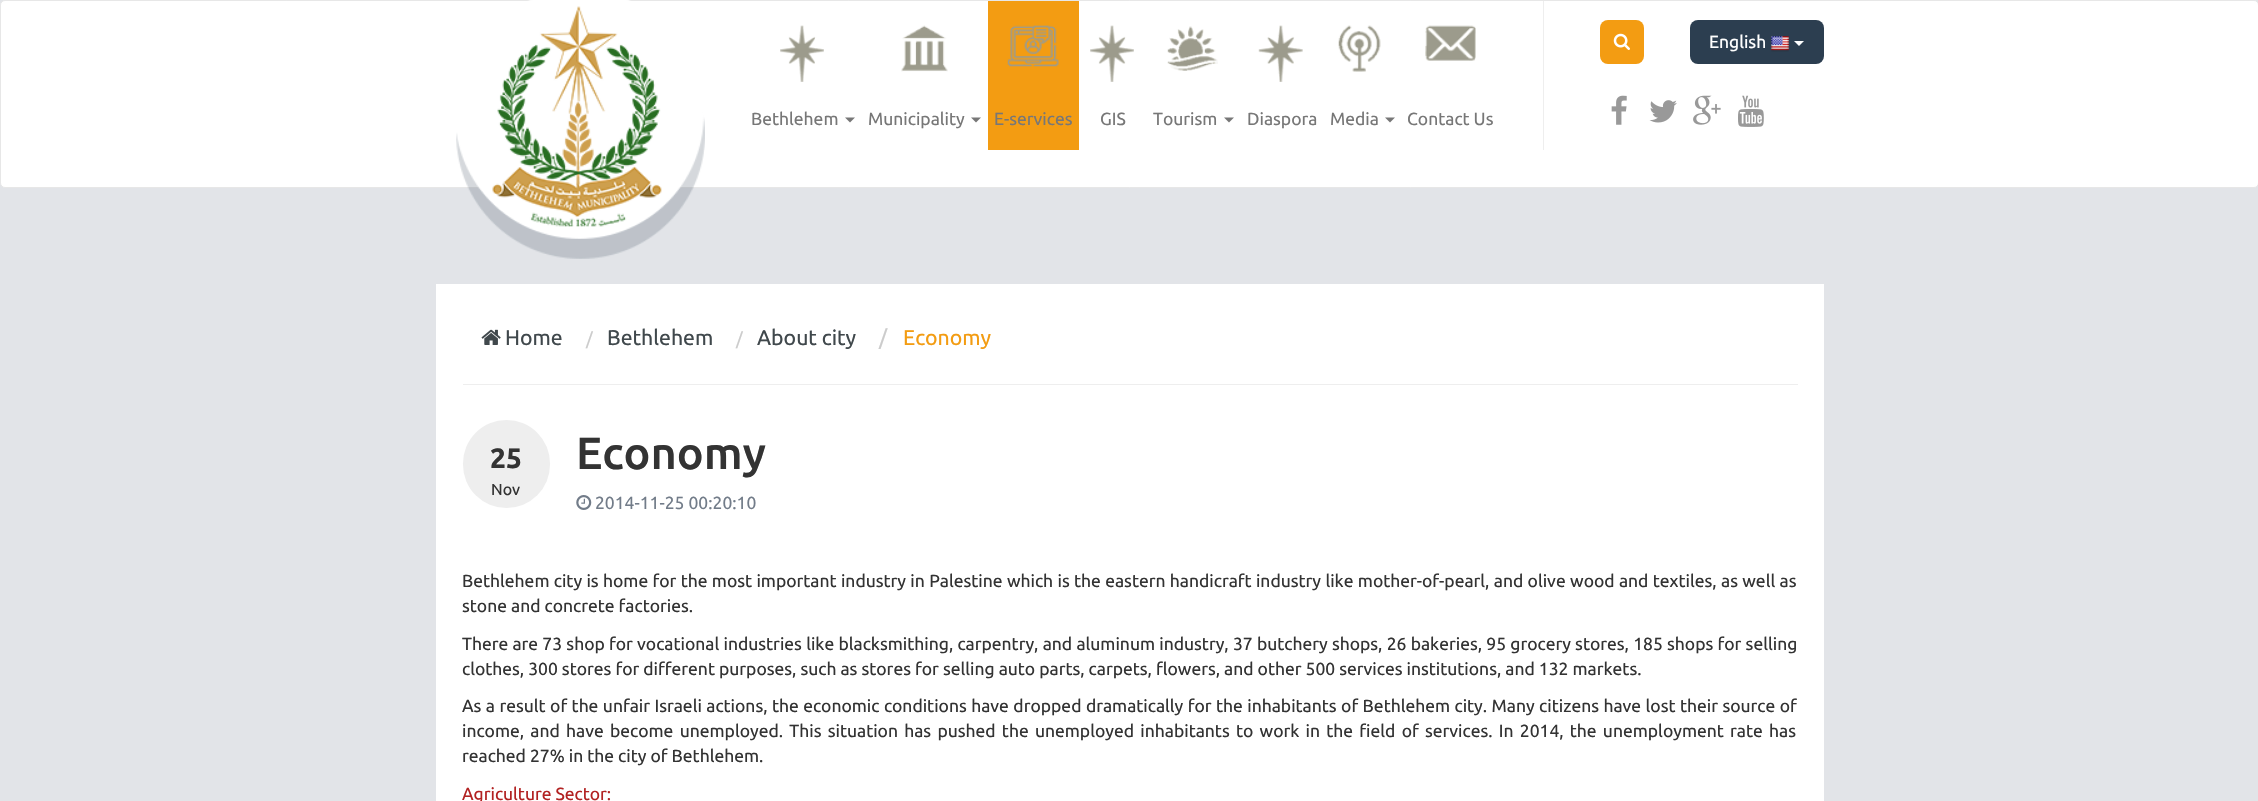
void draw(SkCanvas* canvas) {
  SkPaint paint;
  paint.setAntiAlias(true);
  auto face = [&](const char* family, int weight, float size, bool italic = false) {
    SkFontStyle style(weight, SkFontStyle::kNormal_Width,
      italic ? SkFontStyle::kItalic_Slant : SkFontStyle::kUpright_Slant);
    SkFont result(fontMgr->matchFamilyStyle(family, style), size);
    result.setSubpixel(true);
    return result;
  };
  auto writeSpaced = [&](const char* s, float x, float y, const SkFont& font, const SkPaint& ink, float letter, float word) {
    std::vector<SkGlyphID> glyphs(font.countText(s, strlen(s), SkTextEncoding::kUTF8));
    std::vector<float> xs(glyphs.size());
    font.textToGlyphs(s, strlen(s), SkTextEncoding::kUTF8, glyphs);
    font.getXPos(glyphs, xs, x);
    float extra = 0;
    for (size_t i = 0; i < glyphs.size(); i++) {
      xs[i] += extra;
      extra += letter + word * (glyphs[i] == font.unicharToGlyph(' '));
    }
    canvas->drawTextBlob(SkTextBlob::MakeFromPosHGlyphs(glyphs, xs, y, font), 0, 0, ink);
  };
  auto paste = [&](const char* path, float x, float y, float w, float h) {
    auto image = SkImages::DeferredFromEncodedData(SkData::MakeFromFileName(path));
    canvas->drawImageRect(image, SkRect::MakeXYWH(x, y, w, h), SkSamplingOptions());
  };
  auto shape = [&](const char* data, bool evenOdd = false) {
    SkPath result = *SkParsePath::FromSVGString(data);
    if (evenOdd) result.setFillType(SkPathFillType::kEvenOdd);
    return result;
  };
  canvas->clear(0xffe2e4e8);
  paint.setColor(0xffffffff);
  canvas->drawRoundRect(SkRect::MakeXYWH(0.5f, 0.5f, 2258, 187), 4.5f, 4.5f, paint);
  paint.setStroke(true);
  paint.setStrokeWidth(1);
  paint.setColor(0xffe7e7e7);
  canvas->drawRoundRect(SkRect::MakeXYWH(0.5f, 0.5f, 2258, 187), 4.5f, 4.5f, paint);
  paste("img/1.png", 456, 0, 249, 259);
  paint.setStroke(false);
  paint.setColor(0xfff39c12);
  canvas->drawRoundRect(SkRect::MakeXYWH(1600, 20, 44, 44), 8, 8, paint);
  paste("img/2.png", 1613, 33, 17, 17);
  paint.setColor(0xff2c3e50);
  canvas->drawRoundRect(SkRect::MakeXYWH(1690, 20, 134, 44), 8, 8, paint);
  paste("img/3.png", 1771, 36, 18, 16);
  paint.setColor(0xffffffff);
  canvas->drawPath(shape("M1794 41H1804L1799 46Z"), paint);
  paste("img/4.png", 1611, 95, 16, 30);
  paste("img/5.png", 1649, 100, 28, 23);
  paste("img/6.png", 1693, 95, 28, 30);
  paste("img/7.png", 1738, 95, 26, 32);
  paint.setColor(0xffeeeeee);
  canvas->drawRect(SkRect::MakeXYWH(1543, 1, 1, 149), paint);
  paste("img/8.png", 780, 25, 44, 57);
  paint.setColor(0xff777777);
  canvas->drawPath(shape("M845 117.5H855L850 122.5Z"), paint);
  paste("img/9.png", 901, 25, 47, 47);
  canvas->drawPath(shape("M971 117.5H981L976 122.5Z"), paint);
  paint.setColor(0xfff39c12);
  canvas->drawRect(SkRect::MakeXYWH(988, 1, 91, 149), paint);
  paste("img/10.png", 1007, 25, 52, 42);
  paste("img/11.png", 1090, 25, 44, 57);
  paste("img/12.png", 1167, 26, 51, 45);
  paint.setColor(0xff777777);
  canvas->drawPath(shape("M1224 117.5H1234L1229 122.5Z"), paint);
  paste("img/13.png", 1258, 25, 45, 57);
  paste("img/14.png", 1338, 25, 43, 47);
  canvas->drawPath(shape("M1385 117.5H1395L1390 122.5Z"), paint);
  paste("img/15.png", 1425, 25, 51, 36);
  paint.setColor(0xffffffff);
  canvas->drawRect(SkRect::MakeXYWH(436, 284, 1388, 517), paint);
  paint.setColor(0xffeeeeee);
  canvas->drawRect(SkRect::MakeXYWH(463, 384, 1335, 1), paint);
  paste("img/16.png", 481, 329, 20, 16);
  canvas->drawRoundRect(SkRect::MakeXYWH(463, 420, 87, 88), 43.5f, 43.5f, paint);
  paste("img/17.png", 576, 495, 16, 15);
  auto f0 = face("Ubuntu", 400, 17.5f);
  paint.setColor(0xffffffff);
  canvas->drawString("English", 1709, 48, f0, paint);
  paint.setColor(0xff777777);
  {
    const struct { const char* s; float x, y; } items[] = {
      {"Bethlehem", 751, 125},
      {"Municipality", 868, 125},
      {"E-services", 994, 125},
      {"GIS", 1100, 125},
      {"Tourism", 1153, 125},
      {"Diaspora", 1247, 125},
      {"Media", 1330, 125},
      {"Contact Us", 1407, 125},
    };
    for (auto [s, x, y] : items) {
      canvas->drawString(s, x, y, f0, paint);
    }
  }
  auto f1 = face("Ubuntu", 400, 21.25f);
  paint.setColor(0xff40484c);
  canvas->drawString("Home", 505, 345, f1, paint);
  paint.setColor(0xffcccccc);
  canvas->drawString("/", 586, 345, f0, paint);
  paint.setColor(0xff40484c);
  canvas->drawString("Bethlehem", 607, 345, f1, paint);
  paint.setColor(0xffcccccc);
  canvas->drawString("/", 736, 345, f0, paint);
  paint.setColor(0xff40484c);
  canvas->drawString("About city", 757, 345, f1, paint);
  paint.setColor(0xffcccccc);
  canvas->drawString("/", 879, 345, f1, paint);
  paint.setColor(0xfff39c12);
  canvas->drawString("Economy", 903, 345, f1, paint);
  auto f2 = face("Ubuntu", 700, 28);
  paint.setColor(0xff333333);
  canvas->drawString("25", 490, 468, f2, paint);
  auto f3 = face("Ubuntu", 400, 16);
  canvas->drawString("Nov", 491, 495, f3, paint);
  auto f4 = face("Ubuntu", 500, 45);
  canvas->drawString("Economy", 576, 469, f4, paint);
  paint.setColor(0xff727c89);
  canvas->drawString("2014-11-25 00:20:10", 595, 509, f0, paint);
  paint.setColor(0xff333333);
  writeSpaced("Bethlehem city is home for the most important industry in Palestine which is the eastern handicraft industry like mother-of-pearl, and olive wood and textiles, as well as", 462, 587, f0, paint, 0, 0.3f);
  canvas->drawString("stone and concrete factories.", 462, 612, f0, paint);
  writeSpaced("There are 73 shop for vocational industries like blacksmithing, carpentry, and aluminum industry, 37 butchery shops, 26 bakeries, 95 grocery stores, 185 shops for selling", 462, 650, f0, paint, 0, 0.2f);
  canvas->drawString("clothes, 300 stores for different purposes, such as stores for selling auto parts, carpets, flowers, and other 500 services institutions, and 132 markets.", 462, 675, f0, paint);
  writeSpaced("As a result of the unfair Israeli actions, the economic conditions have dropped dramatically for the inhabitants of Bethlehem city. Many citizens have lost their source of", 462, 712, f0, paint, 0, 0.4f);
  writeSpaced("income, and have become unemployed. This situation has pushed the unemployed inhabitants to work in the field of services. In 2014, the unemployment rate has", 462, 737, f0, paint, 0, 2.2f);
  canvas->drawString("reached 27% in the city of Bethlehem.", 462, 762, f0, paint);
  paint.setColor(0xffb22222);
  canvas->drawString("Agriculture Sector:", 462, 800, f0, paint);
}
